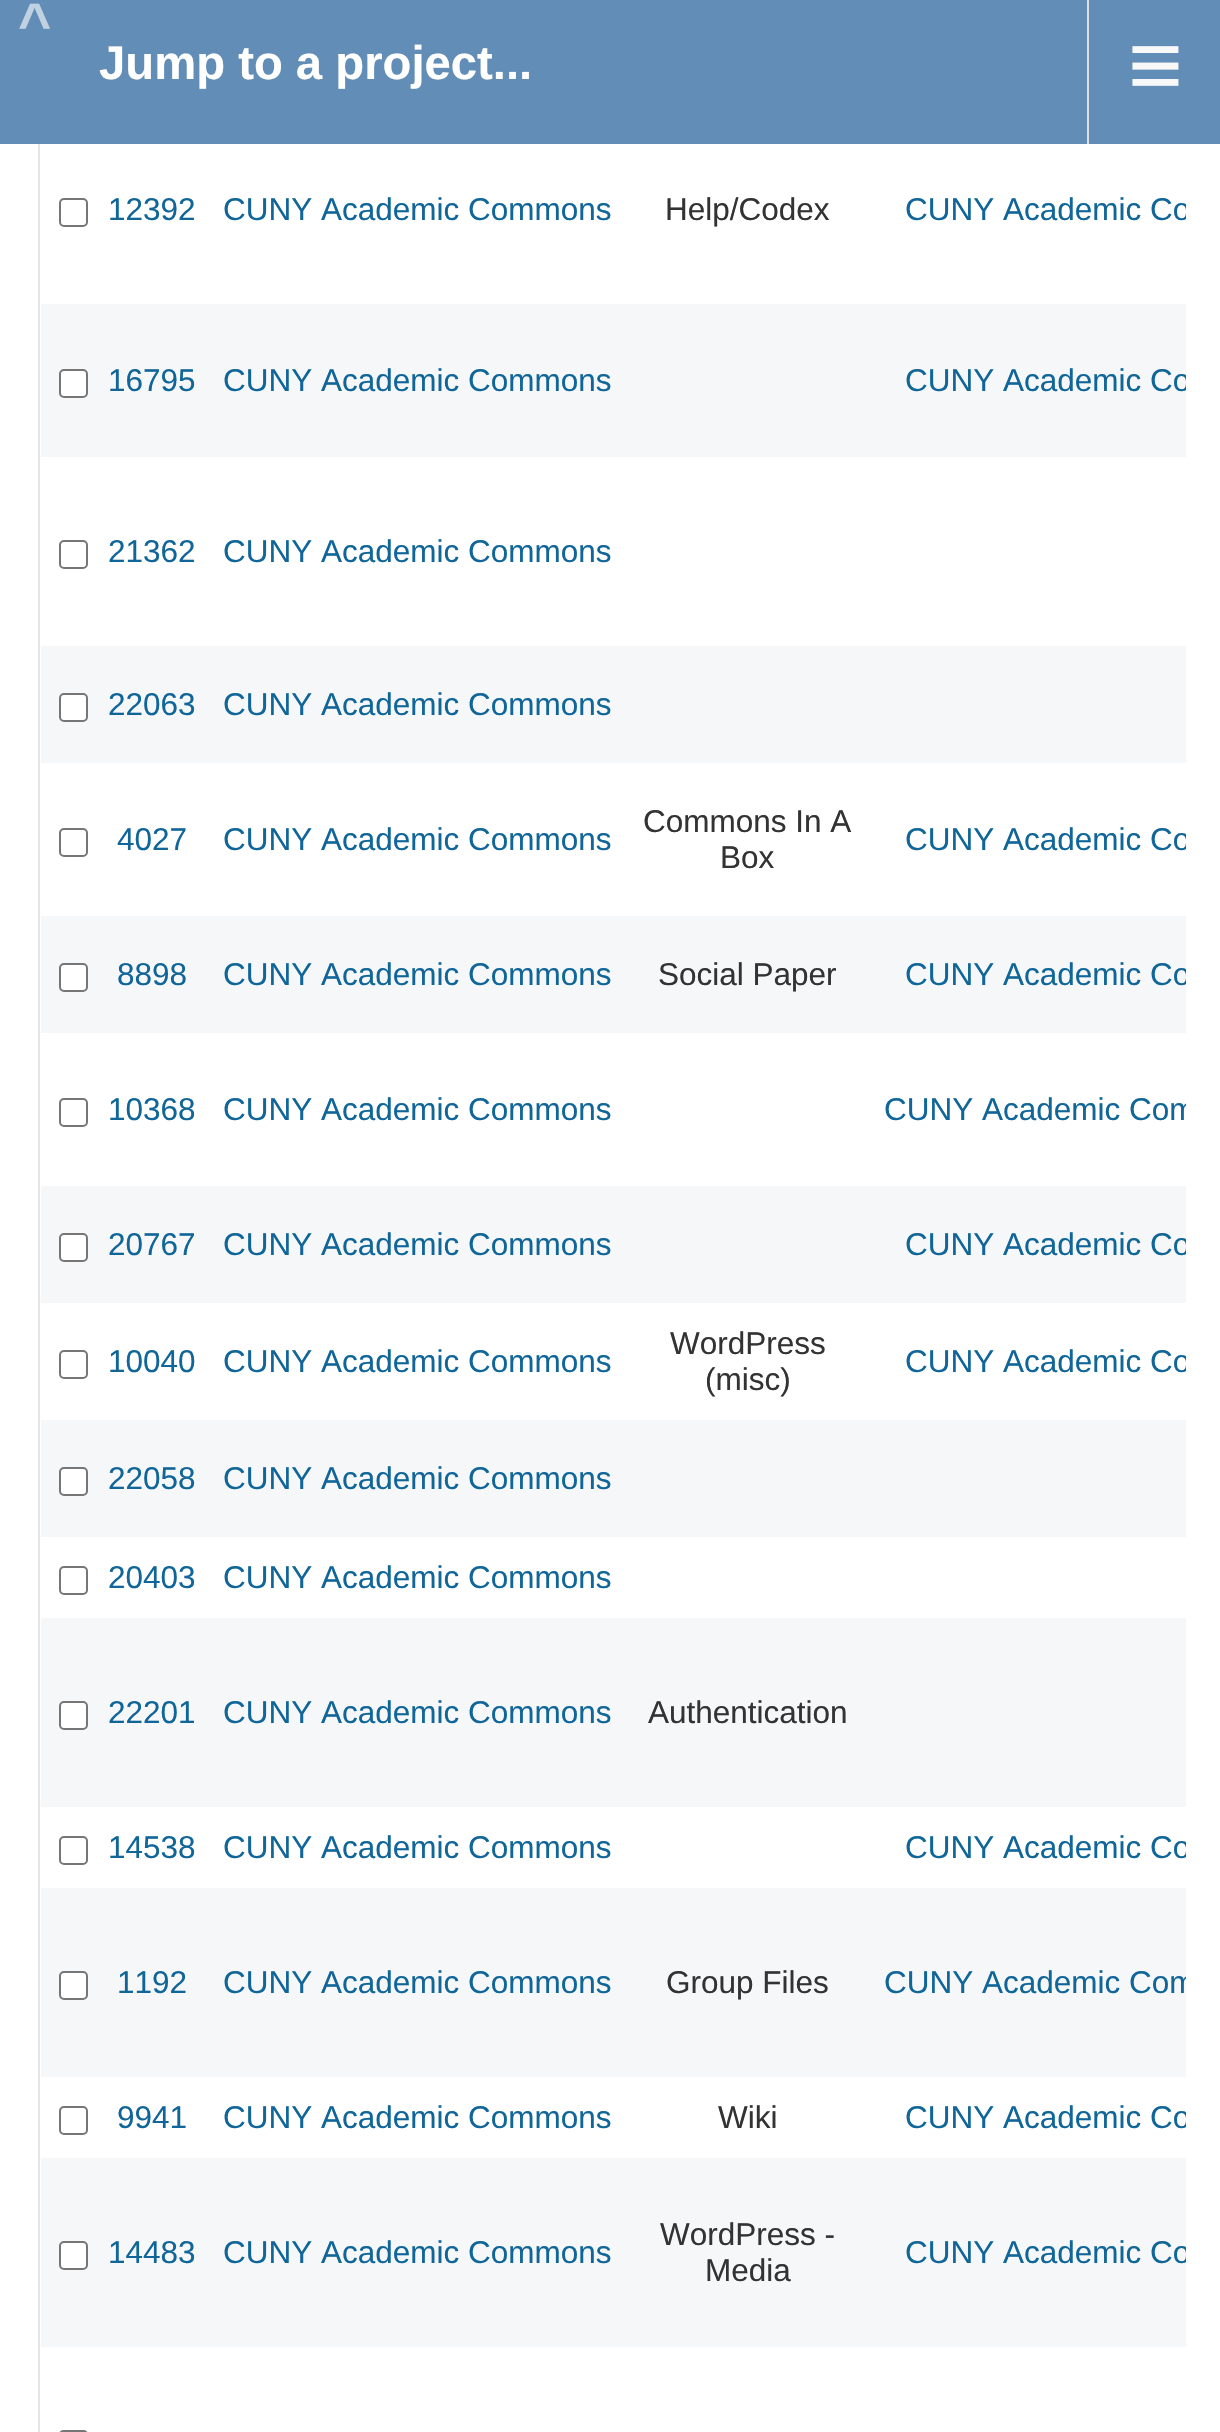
void draw(SkCanvas* canvas) {
  SkPaint paint;
  paint.setAntiAlias(true);
  auto face = [&](const char* family, int weight, float size, bool italic = false) {
    SkFontStyle style(weight, SkFontStyle::kNormal_Width,
      italic ? SkFontStyle::kItalic_Slant : SkFontStyle::kUpright_Slant);
    SkFont result(fontMgr->matchFamilyStyle(family, style), size);
    result.setSubpixel(true);
    return result;
  };
  auto writeSpaced = [&](const char* s, float x, float y, const SkFont& font, const SkPaint& ink, float letter, float word) {
    std::vector<SkGlyphID> glyphs(font.countText(s, strlen(s), SkTextEncoding::kUTF8));
    std::vector<float> xs(glyphs.size());
    font.textToGlyphs(s, strlen(s), SkTextEncoding::kUTF8, glyphs);
    font.getXPos(glyphs, xs, x);
    float extra = 0;
    for (size_t i = 0; i < glyphs.size(); i++) {
      xs[i] += extra;
      extra += letter + word * (glyphs[i] == font.unicharToGlyph(' '));
    }
    canvas->drawTextBlob(SkTextBlob::MakeFromPosHGlyphs(glyphs, xs, y, font), 0, 0, ink);
  };
  canvas->clear(0xffffffff);
  paint.setStroke(true);
  paint.setStrokeWidth(2);
  paint.setColor(0xffe4e4e4);
  canvas->drawRect(SkRect::MakeXYWH(39, -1, 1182, 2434), paint);
  paint.setStroke(false);
  paint.setColor(0xff628db6);
  canvas->drawRect(SkRect::MakeXYWH(0, 0, 1220, 144), paint);
  paint.setColor(0xffdddddd);
  canvas->drawRect(SkRect::MakeXYWH(1087, 0, 2, 144), paint);
  paint.setStroke(true);
  paint.setColor(0xff767676);
  canvas->drawRoundRect(SkRect::MakeXYWH(60, 199, 27, 27), 4, 4, paint);
  paint.setStroke(false);
  paint.setColor(0xfff6f7f8);
  canvas->drawRect(SkRect::MakeXYWH(41, 304, 1145, 153), paint);
  paint.setColor(0xffffffff);
  canvas->drawRoundRect(SkRect::MakeXYWH(60, 370, 27, 27), 4, 4, paint);
  paint.setStroke(true);
  paint.setColor(0xff767676);
  canvas->drawRoundRect(SkRect::MakeXYWH(60, 370, 27, 27), 4, 4, paint);
  canvas->drawRoundRect(SkRect::MakeXYWH(60, 541, 27, 27), 4, 4, paint);
  paint.setStroke(false);
  paint.setColor(0xfff6f7f8);
  canvas->drawRect(SkRect::MakeXYWH(41, 646, 1145, 117), paint);
  paint.setColor(0xffffffff);
  canvas->drawRoundRect(SkRect::MakeXYWH(60, 694, 27, 27), 4, 4, paint);
  paint.setStroke(true);
  paint.setColor(0xff767676);
  canvas->drawRoundRect(SkRect::MakeXYWH(60, 694, 27, 27), 4, 4, paint);
  canvas->drawRoundRect(SkRect::MakeXYWH(60, 829, 27, 27), 4, 4, paint);
  paint.setStroke(false);
  paint.setColor(0xfff6f7f8);
  canvas->drawRect(SkRect::MakeXYWH(41, 916, 1145, 117), paint);
  paint.setColor(0xffffffff);
  canvas->drawRoundRect(SkRect::MakeXYWH(60, 964, 27, 27), 4, 4, paint);
  paint.setStroke(true);
  paint.setColor(0xff767676);
  canvas->drawRoundRect(SkRect::MakeXYWH(60, 964, 27, 27), 4, 4, paint);
  canvas->drawRoundRect(SkRect::MakeXYWH(60, 1099, 27, 27), 4, 4, paint);
  paint.setStroke(false);
  paint.setColor(0xfff6f7f8);
  canvas->drawRect(SkRect::MakeXYWH(41, 1186, 1145, 117), paint);
  paint.setColor(0xffffffff);
  canvas->drawRoundRect(SkRect::MakeXYWH(60, 1234, 27, 27), 4, 4, paint);
  paint.setStroke(true);
  paint.setColor(0xff767676);
  canvas->drawRoundRect(SkRect::MakeXYWH(60, 1234, 27, 27), 4, 4, paint);
  canvas->drawRoundRect(SkRect::MakeXYWH(60, 1351, 27, 27), 4, 4, paint);
  paint.setStroke(false);
  paint.setColor(0xfff6f7f8);
  canvas->drawRect(SkRect::MakeXYWH(41, 1420, 1145, 117), paint);
  paint.setColor(0xffffffff);
  canvas->drawRoundRect(SkRect::MakeXYWH(60, 1468, 27, 27), 4, 4, paint);
  paint.setStroke(true);
  paint.setColor(0xff767676);
  canvas->drawRoundRect(SkRect::MakeXYWH(60, 1468, 27, 27), 4, 4, paint);
  canvas->drawRoundRect(SkRect::MakeXYWH(60, 1567, 27, 27), 4, 4, paint);
  paint.setStroke(false);
  paint.setColor(0xfff6f7f8);
  canvas->drawRect(SkRect::MakeXYWH(41, 1618, 1145, 189), paint);
  paint.setColor(0xffffffff);
  canvas->drawRoundRect(SkRect::MakeXYWH(60, 1702, 27, 27), 4, 4, paint);
  paint.setStroke(true);
  paint.setColor(0xff767676);
  canvas->drawRoundRect(SkRect::MakeXYWH(60, 1702, 27, 27), 4, 4, paint);
  canvas->drawRoundRect(SkRect::MakeXYWH(60, 1837, 27, 27), 4, 4, paint);
  paint.setStroke(false);
  paint.setColor(0xfff6f7f8);
  canvas->drawRect(SkRect::MakeXYWH(41, 1888, 1145, 189), paint);
  paint.setColor(0xffffffff);
  canvas->drawRoundRect(SkRect::MakeXYWH(60, 1972, 27, 27), 4, 4, paint);
  paint.setStroke(true);
  paint.setColor(0xff767676);
  canvas->drawRoundRect(SkRect::MakeXYWH(60, 1972, 27, 27), 4, 4, paint);
  canvas->drawRoundRect(SkRect::MakeXYWH(60, 2107, 27, 27), 4, 4, paint);
  paint.setStroke(false);
  paint.setColor(0xfff6f7f8);
  canvas->drawRect(SkRect::MakeXYWH(41, 2158, 1145, 189), paint);
  paint.setColor(0xffffffff);
  canvas->drawRoundRect(SkRect::MakeXYWH(60, 2242, 27, 27), 4, 4, paint);
  paint.setStroke(true);
  paint.setColor(0xff767676);
  canvas->drawRoundRect(SkRect::MakeXYWH(60, 2242, 27, 27), 4, 4, paint);
  canvas->drawRoundRect(SkRect::MakeXYWH(60, 2431, 27, 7), 4, 4, paint);
  auto f0 = face("Liberation Sans", 700, 57);
  paint.setStroke(false);
  paint.setColor(0xffc0d1e2);
  writeSpaced("^", 18, 43, f0, paint, 8, 0);
  auto f1 = face("Liberation Sans", 700, 47.25f);
  paint.setColor(0xffffffff);
  canvas->drawString("Jump to a project...", 99, 79, f1, paint);
  auto f2 = face("Liberation Sans", 400, 94);
  paint.setColor(0xfff8f8f8);
  canvas->drawString("≡", 1128, 97, f2, paint);
  auto f3 = face("Liberation Sans", 400, 31.5f);
  paint.setColor(0xff116699);
  canvas->drawString("12392", 108, 220, f3, paint);
  canvas->drawString("CUNY Academic Commons", 223, 220, f3, paint);
  paint.setColor(0xff333333);
  canvas->drawString("Help/Codex", 665, 220, f3, paint);
  canvas->save();
  canvas->clipRect(SkRect::MakeXYWH(36, 0, 1150, 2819));
  paint.setColor(0xff116699);
  canvas->drawString("CUNY Academic Co", 905, 220, f3, paint);
  canvas->restore();
  canvas->drawString("16795", 108, 391, f3, paint);
  canvas->drawString("CUNY Academic Commons", 223, 391, f3, paint);
  canvas->save();
  canvas->clipRect(SkRect::MakeXYWH(36, 0, 1150, 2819));
  canvas->drawString("CUNY Academic Co", 905, 391, f3, paint);
  canvas->restore();
  {
    const struct { const char* s; float x, y; } items[] = {
      {"21362", 108, 562},
      {"CUNY Academic Commons", 223, 562},
      {"22063", 108, 715},
      {"CUNY Academic Commons", 223, 715},
      {"4027", 117, 850},
      {"CUNY Academic Commons", 223, 850},
    };
    for (auto [s, x, y] : items) {
      canvas->drawString(s, x, y, f3, paint);
    }
  }
  paint.setColor(0xff333333);
  canvas->drawString("Commons In A", 643, 832, f3, paint);
  canvas->drawString("Box", 720, 868, f3, paint);
  canvas->save();
  canvas->clipRect(SkRect::MakeXYWH(36, 0, 1150, 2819));
  paint.setColor(0xff116699);
  canvas->drawString("CUNY Academic Co", 905, 850, f3, paint);
  canvas->restore();
  canvas->drawString("8898", 117, 985, f3, paint);
  canvas->drawString("CUNY Academic Commons", 223, 985, f3, paint);
  paint.setColor(0xff333333);
  canvas->drawString("Social Paper", 658, 985, f3, paint);
  canvas->save();
  canvas->clipRect(SkRect::MakeXYWH(36, 0, 1150, 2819));
  paint.setColor(0xff116699);
  canvas->drawString("CUNY Academic Co", 905, 985, f3, paint);
  canvas->restore();
  canvas->drawString("10368", 108, 1120, f3, paint);
  canvas->drawString("CUNY Academic Commons", 223, 1120, f3, paint);
  canvas->save();
  canvas->clipRect(SkRect::MakeXYWH(36, 0, 1150, 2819));
  canvas->drawString("CUNY Academic Com", 884, 1120, f3, paint);
  canvas->restore();
  canvas->drawString("20767", 108, 1255, f3, paint);
  canvas->drawString("CUNY Academic Commons", 223, 1255, f3, paint);
  canvas->save();
  canvas->clipRect(SkRect::MakeXYWH(36, 0, 1150, 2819));
  canvas->drawString("CUNY Academic Co", 905, 1255, f3, paint);
  canvas->restore();
  canvas->drawString("10040", 108, 1372, f3, paint);
  canvas->drawString("CUNY Academic Commons", 223, 1372, f3, paint);
  paint.setColor(0xff333333);
  canvas->drawString("WordPress", 670, 1354, f3, paint);
  canvas->drawString("(misc)", 705, 1390, f3, paint);
  canvas->save();
  canvas->clipRect(SkRect::MakeXYWH(36, 0, 1150, 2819));
  paint.setColor(0xff116699);
  canvas->drawString("CUNY Academic Co", 905, 1372, f3, paint);
  canvas->restore();
  {
    const struct { const char* s; float x, y; } items[] = {
      {"22058", 108, 1489},
      {"CUNY Academic Commons", 223, 1489},
      {"20403", 108, 1588},
      {"CUNY Academic Commons", 223, 1588},
      {"22201", 108, 1723},
      {"CUNY Academic Commons", 223, 1723},
    };
    for (auto [s, x, y] : items) {
      canvas->drawString(s, x, y, f3, paint);
    }
  }
  paint.setColor(0xff333333);
  canvas->drawString("Authentication", 648, 1723, f3, paint);
  paint.setColor(0xff116699);
  canvas->drawString("14538", 108, 1858, f3, paint);
  canvas->drawString("CUNY Academic Commons", 223, 1858, f3, paint);
  canvas->save();
  canvas->clipRect(SkRect::MakeXYWH(36, 0, 1150, 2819));
  canvas->drawString("CUNY Academic Co", 905, 1858, f3, paint);
  canvas->restore();
  canvas->drawString("1192", 117, 1993, f3, paint);
  canvas->drawString("CUNY Academic Commons", 223, 1993, f3, paint);
  paint.setColor(0xff333333);
  canvas->drawString("Group Files", 666, 1993, f3, paint);
  canvas->save();
  canvas->clipRect(SkRect::MakeXYWH(36, 0, 1150, 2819));
  paint.setColor(0xff116699);
  canvas->drawString("CUNY Academic Com", 884, 1993, f3, paint);
  canvas->restore();
  canvas->drawString("9941", 117, 2128, f3, paint);
  canvas->drawString("CUNY Academic Commons", 223, 2128, f3, paint);
  paint.setColor(0xff333333);
  canvas->drawString("Wiki", 718, 2128, f3, paint);
  canvas->save();
  canvas->clipRect(SkRect::MakeXYWH(36, 0, 1150, 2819));
  paint.setColor(0xff116699);
  canvas->drawString("CUNY Academic Co", 905, 2128, f3, paint);
  canvas->restore();
  canvas->drawString("14483", 108, 2263, f3, paint);
  canvas->drawString("CUNY Academic Commons", 223, 2263, f3, paint);
  paint.setColor(0xff333333);
  canvas->drawString("WordPress -", 660, 2245, f3, paint);
  canvas->drawString("Media", 705, 2281, f3, paint);
  canvas->save();
  canvas->clipRect(SkRect::MakeXYWH(36, 0, 1150, 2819));
  paint.setColor(0xff116699);
  canvas->drawString("CUNY Academic Co", 905, 2263, f3, paint);
  canvas->restore();
}
